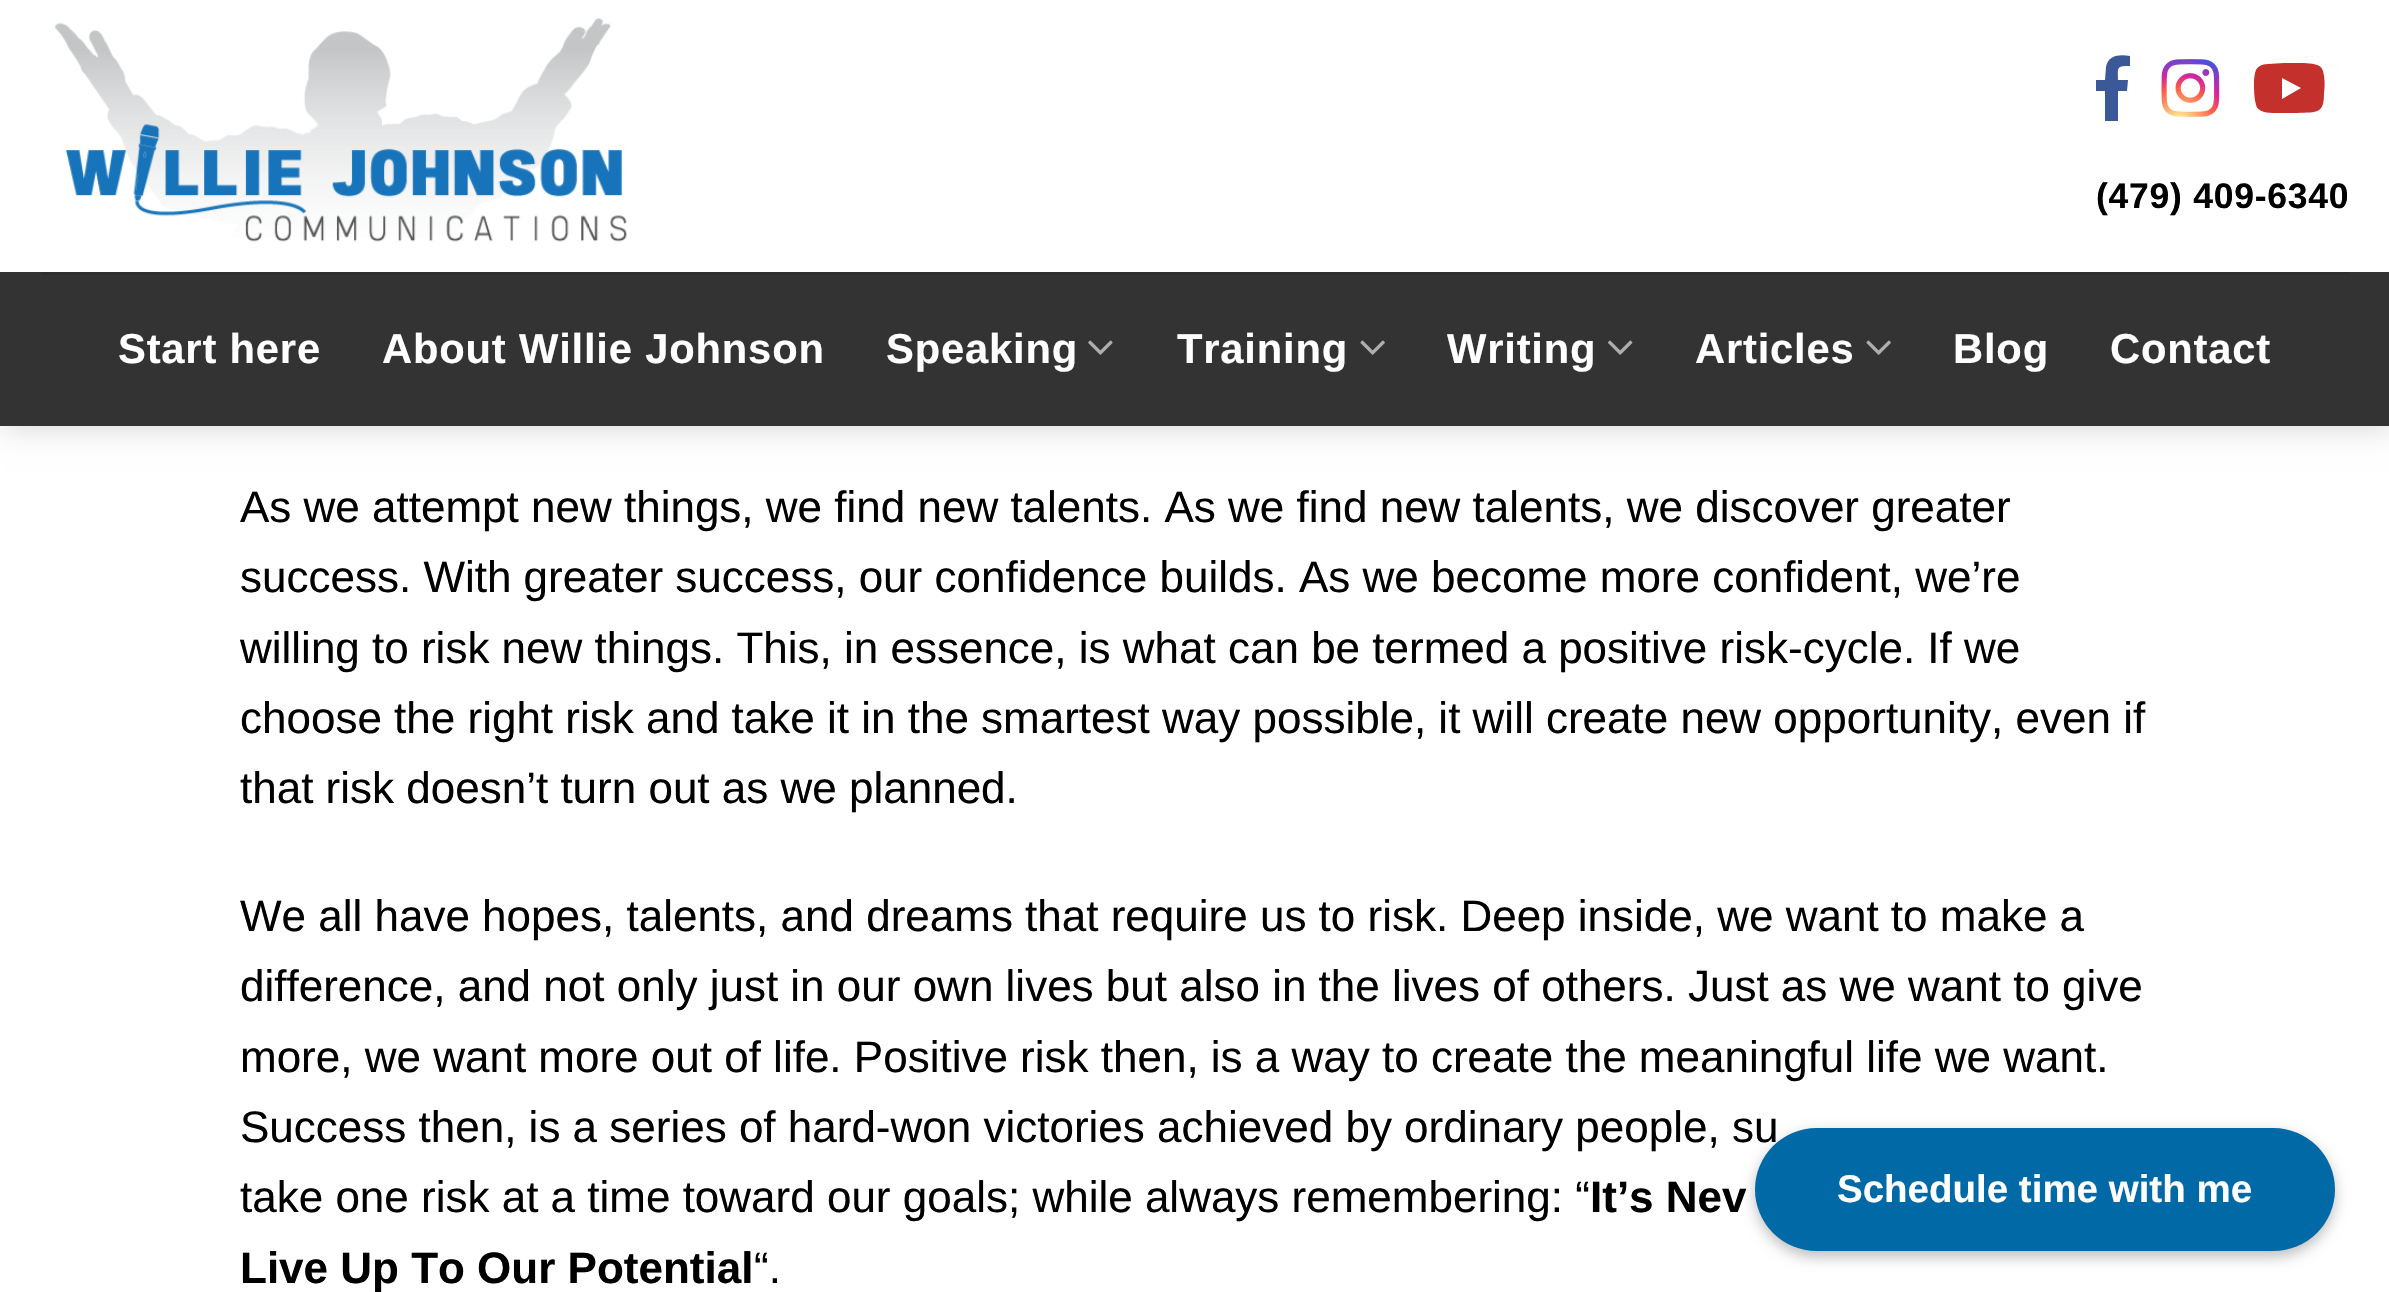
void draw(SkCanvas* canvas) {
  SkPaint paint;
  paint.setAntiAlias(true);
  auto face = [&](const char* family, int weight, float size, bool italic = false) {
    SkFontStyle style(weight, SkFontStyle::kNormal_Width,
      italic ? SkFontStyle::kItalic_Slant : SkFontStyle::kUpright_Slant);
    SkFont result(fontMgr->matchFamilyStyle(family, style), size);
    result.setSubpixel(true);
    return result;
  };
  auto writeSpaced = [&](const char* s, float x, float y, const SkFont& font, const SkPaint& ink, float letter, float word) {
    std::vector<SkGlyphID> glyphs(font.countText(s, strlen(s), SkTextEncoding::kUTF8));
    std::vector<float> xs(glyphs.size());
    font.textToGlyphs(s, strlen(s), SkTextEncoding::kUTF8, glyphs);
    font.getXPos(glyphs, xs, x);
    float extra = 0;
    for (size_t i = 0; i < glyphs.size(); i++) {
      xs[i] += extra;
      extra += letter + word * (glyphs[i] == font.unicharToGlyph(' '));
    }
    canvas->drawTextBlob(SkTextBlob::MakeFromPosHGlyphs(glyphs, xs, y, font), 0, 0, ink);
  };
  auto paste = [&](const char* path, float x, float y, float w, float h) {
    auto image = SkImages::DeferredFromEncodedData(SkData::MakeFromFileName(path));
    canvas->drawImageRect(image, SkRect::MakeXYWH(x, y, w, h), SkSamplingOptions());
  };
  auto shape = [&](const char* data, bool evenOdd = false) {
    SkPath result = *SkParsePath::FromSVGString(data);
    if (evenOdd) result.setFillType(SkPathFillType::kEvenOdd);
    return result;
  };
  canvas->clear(0xffffffff);
  paint.setColor(0x26000000);
  paint.setMaskFilter(SkMaskFilter::MakeBlur(kNormal_SkBlurStyle, 14));
  canvas->drawRect(SkRect::MakeXYWH(3, 3, 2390, 426), paint);
  paint.setMaskFilter(nullptr);
  paint.setColor(0xffffffff);
  canvas->drawRect(SkRect::MakeXYWH(0, 0, 2389, 272), paint);
  paste("img/1.png", 55, 18, 572, 224);
  paint.setColor(0xff3b5998);
  canvas->drawPath(shape("M2105 121V91H2096V80H2105L2106 67C2108 55 2120 54 2130 56V66C2116 66 2118 67 2118 80H2128L2127 91H2118V121Z"), paint);
  paste("img/2.png", 2161, 59, 59, 58);
  paint.setColor(0xffc4302b);
  canvas->drawPath(shape("M2323 71C2321 63 2311 64 2304 63H2284L2268 64C2255 65 2255 71 2254 82C2254 90 2254 98 2256 105C2258 114 2273 113 2280 113H2297C2318 112 2324 114 2324 93C2325 86 2325 78 2323 71ZM2282 99V78L2301 88Z"), paint);
  paint.setColor(0xff333333);
  canvas->drawRect(SkRect::MakeXYWH(0, 272, 2389, 154), paint);
  paint.setColor(0xff2e2e2e);
  canvas->drawRect(SkRect::MakeXYWH(41, 272, 2308, 3), paint);
  paste("img/3.png", 1088, 340, 25, 15);
  paste("img/4.png", 1360, 340, 25, 15);
  paste("img/5.png", 1608, 340, 25, 15);
  paste("img/4.png", 1866, 340, 25, 15);
  paint.setColor(0x40000000);
  paint.setMaskFilter(SkMaskFilter::MakeBlur(kNormal_SkBlurStyle, 7));
  canvas->drawRoundRect(SkRect::MakeXYWH(1755, 1133, 580, 124), 62, 62, paint);
  paint.setMaskFilter(nullptr);
  auto f0 = face("Liberation Sans", 700, 35.5f);
  paint.setColor(0xff000000);
  writeSpaced("(479) 409-6340", 2096, 208, f0, paint, 0.75f, 0);
  auto f1 = face("Liberation Sans", 700, 41.75f);
  paint.setColor(0xffffffff);
  {
    const struct { const char* s; float x, y; } items[] = {
      {"Start here", 118, 363},
      {"About Willie Johnson", 382, 363},
      {"Speaking", 886, 363},
      {"Training", 1177, 363},
      {"Writing", 1447, 363},
      {"Articles", 1695, 363},
      {"Blog", 1953, 363},
      {"Contact", 2110, 363},
    };
    for (auto [s, x, y] : items) {
      writeSpaced(s, x, y, f1, paint, 0.8f, 0);
    }
  }
  auto f2 = face("Liberation Sans", 400, 44);
  paint.setColor(0xff000000);
  {
    const struct { const char* s; float x, y; } items[] = {
      {"As we attempt new things, we find new talents. As we find new talents, we discover greater", 240, 522},
      {"success. With greater success, our confidence builds. As we become more confident, we’re", 240, 592},
      {"willing to risk new things. This, in essence, is what can be termed a positive risk-cycle. If we", 240, 663},
      {"choose the right risk and take it in the smartest way possible, it will create new opportunity, even if", 240, 733},
      {"that risk doesn’t turn out as we planned.", 240, 803},
      {"We all have hopes, talents, and dreams that require us to risk. Deep inside, we want to make a", 240, 931},
      {"difference, and not only just in our own lives but also in the lives of others. Just as we want to give", 240, 1001},
      {"more, we want more out of life. Positive risk then, is a way to create the meaningful life we want.", 240, 1072},
      {"Success then, is a series of hard-won victories achieved by ordinary people, su", 240, 1142},
      {"take one risk at a time toward our goals; while always remembering: “", 240, 1212},
    };
    for (auto [s, x, y] : items) {
      canvas->drawString(s, x, y, f2, paint);
    }
  }
  auto f3 = face("Liberation Sans", 700, 44);
  canvas->drawString("It’s Nev", 1590, 1212, f3, paint);
  canvas->drawString("Live Up To Our Potential", 240, 1283, f3, paint);
  canvas->drawString("“.", 754, 1283, f2, paint);
  paint.setColor(0xff0169a5);
  canvas->drawRoundRect(SkRect::MakeXYWH(1755, 1128, 580, 123), 61.5f, 61.5f, paint);
  auto f4 = face("Liberation Sans", 700, 38.5f);
  paint.setColor(0xffffffff);
  canvas->drawString("Schedule time with me", 1837, 1202, f4, paint);
}
